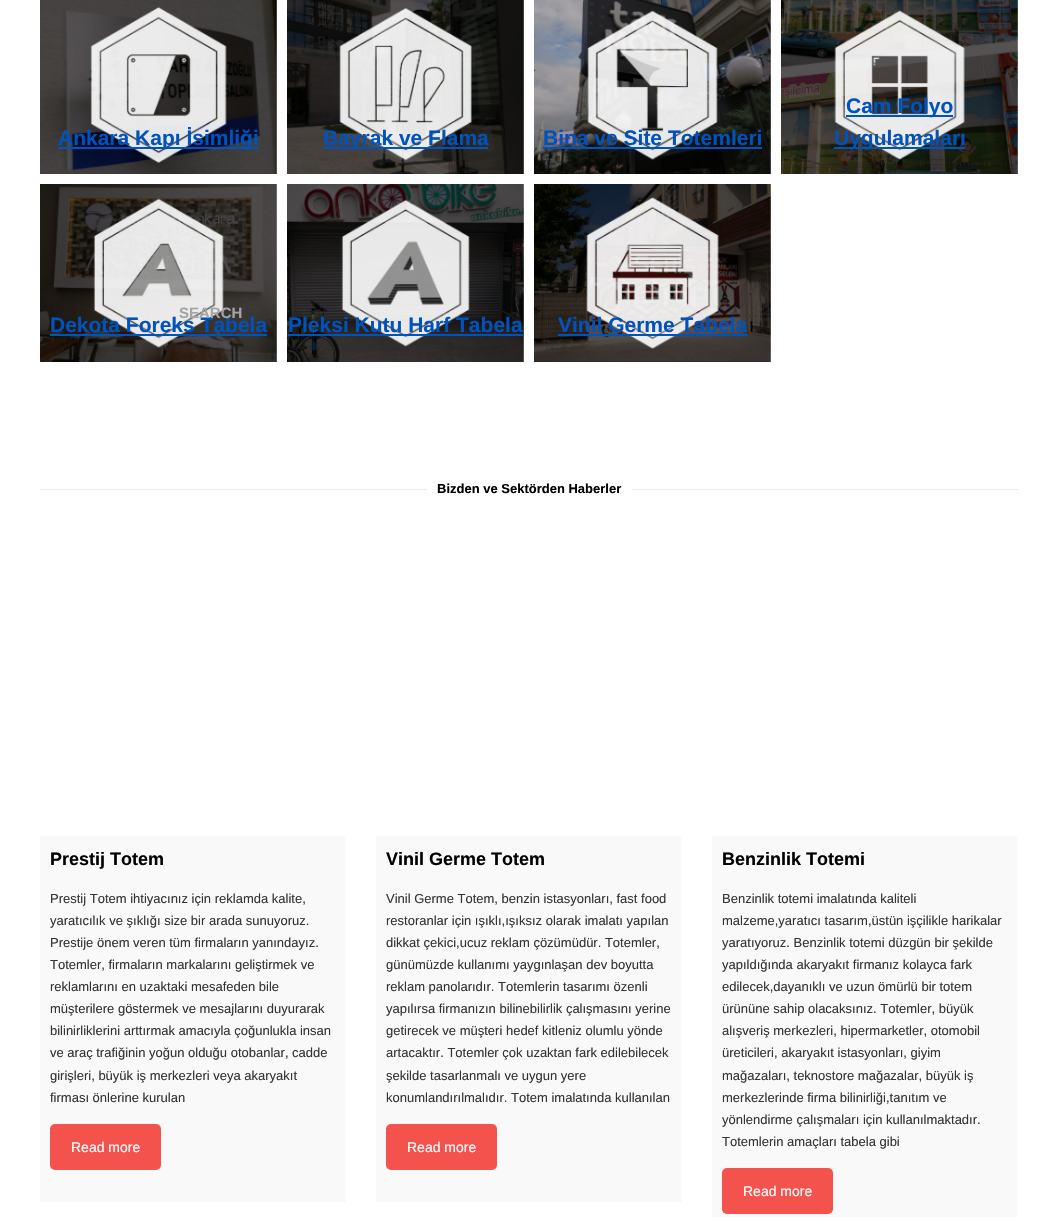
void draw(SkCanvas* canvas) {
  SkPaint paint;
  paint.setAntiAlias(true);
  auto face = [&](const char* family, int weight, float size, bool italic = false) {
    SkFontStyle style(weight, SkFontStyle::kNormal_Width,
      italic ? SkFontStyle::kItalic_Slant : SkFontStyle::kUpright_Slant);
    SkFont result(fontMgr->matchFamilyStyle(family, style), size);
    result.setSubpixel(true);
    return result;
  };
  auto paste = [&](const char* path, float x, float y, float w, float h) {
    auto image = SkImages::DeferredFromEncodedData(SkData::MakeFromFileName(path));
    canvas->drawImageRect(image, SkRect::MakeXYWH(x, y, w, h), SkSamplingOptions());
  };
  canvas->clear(0xffffffff);
  paste("img/1.png", 40, 0, 237, 174);
  paint.setColor(0xff0052bd);
  canvas->drawRect(SkRect::MakeXYWH(58, 147, 201, 2), paint);
  paste("img/2.png", 287, 0, 237, 174);
  canvas->drawRect(SkRect::MakeXYWH(323, 147, 165, 2), paint);
  paste("img/3.png", 534, 0, 237, 174);
  canvas->drawRect(SkRect::MakeXYWH(543, 147, 219, 2), paint);
  paste("img/4.png", 781, 0, 237, 174);
  canvas->drawRect(SkRect::MakeXYWH(846, 115, 107, 2), paint);
  canvas->drawRect(SkRect::MakeXYWH(834, 147, 131, 2), paint);
  paste("img/5.png", 40, 184, 237, 178);
  canvas->drawRect(SkRect::MakeXYWH(50, 334, 217, 2), paint);
  paste("img/6.png", 287, 184, 237, 178);
  canvas->drawRect(SkRect::MakeXYWH(288, 334, 235, 2), paint);
  paste("img/7.png", 534, 184, 237, 178);
  {
    const struct { float x, y, w, h; SkColor color; } items[] = {
      {558, 334, 189, 2, 0xff0052bd},
      {40, 489, 387, 1, 0xffebebeb},
      {632, 489, 386, 1, 0xffebebeb},
      {40, 836, 306, 366, 0xfff9f9f9},
    };
    for (auto [x, y, w, h, color] : items) {
      paint.setColor(color);
      canvas->drawRect(SkRect::MakeXYWH(x, y, w, h), paint);
    }
  }
  paint.setColor(0xfff4524d);
  canvas->drawRoundRect(SkRect::MakeXYWH(50, 1124, 111, 46), 5, 5, paint);
  paint.setColor(0xfff9f9f9);
  canvas->drawRect(SkRect::MakeXYWH(376, 836, 306, 366), paint);
  paint.setColor(0xfff4524d);
  canvas->drawRoundRect(SkRect::MakeXYWH(386, 1124, 111, 46), 5, 5, paint);
  paint.setColor(0xfff9f9f9);
  canvas->drawRect(SkRect::MakeXYWH(712, 836, 306, 381), paint);
  paint.setColor(0xfff4524d);
  canvas->drawRoundRect(SkRect::MakeXYWH(722, 1168, 111, 46), 5, 5, paint);
  auto f0 = face("Liberation Sans", 700, 21);
  paint.setColor(0xff0052bd);
  {
    const struct { const char* s; float x, y; } items[] = {
      {"Ankara Kapı İsimliği", 58, 145},
      {"Bayrak ve Flama", 323, 145},
      {"Bina ve Site Totemleri", 543, 145},
      {"Cam Folyo", 846, 113},
      {"Uygulamaları", 834, 145},
      {"Dekota Foreks Tabela", 50, 332},
      {"Pleksi Kutu Harf Tabela", 288, 332},
      {"Vinil Germe Tabela", 558, 332},
    };
    for (auto [s, x, y] : items) {
      canvas->drawString(s, x, y, f0, paint);
    }
  }
  auto f1 = face("Liberation Sans", 700, 13);
  paint.setColor(0xff000000);
  canvas->drawString("Bizden ve Sektörden Haberler", 437, 493, f1, paint);
  auto f2 = face("Liberation Sans", 700, 18);
  canvas->drawString("Prestij Totem", 50, 865, f2, paint);
  auto f3 = face("Liberation Sans", 400, 13);
  paint.setColor(0xff343434);
  {
    const struct { const char* s; float x, y; } items[] = {
      {"Prestij Totem ihtiyacınız için reklamda kalite,", 50, 903},
      {"yaratıcılık ve şıklığı size bir arada sunuyoruz.", 50, 925},
      {"Prestije önem veren tüm firmaların yanındayız.", 50, 947},
      {"Totemler, firmaların markalarını geliştirmek ve", 50, 969},
      {"reklamlarını en uzaktaki mesafeden bile", 50, 991},
      {"müşterilere göstermek ve mesajlarını duyurarak", 50, 1013},
      {"bilinirliklerini arttırmak amacıyla çoğunlukla insan", 50, 1035},
      {"ve araç trafiğinin yoğun olduğu otobanlar, cadde", 50, 1057},
      {"girişleri, büyük iş merkezleri veya akaryakıt", 50, 1080},
      {"firması önlerine kurulan", 50, 1102},
    };
    for (auto [s, x, y] : items) {
      canvas->drawString(s, x, y, f3, paint);
    }
  }
  auto f4 = face("Liberation Sans", 400, 14);
  paint.setColor(0xffffffff);
  canvas->drawString("Read more", 71, 1152, f4, paint);
  paint.setColor(0xff000000);
  canvas->drawString("Vinil Germe Totem", 386, 865, f2, paint);
  paint.setColor(0xff343434);
  {
    const struct { const char* s; float x, y; } items[] = {
      {"Vinil Germe Totem, benzin istasyonları, fast food", 386, 903},
      {"restoranlar için ışıklı,ışıksız olarak imalatı yapılan", 386, 925},
      {"dikkat çekici,ucuz reklam çözümüdür. Totemler,", 386, 947},
      {"günümüzde kullanımı yaygınlaşan dev boyutta", 386, 969},
      {"reklam panolarıdır. Totemlerin tasarımı özenli", 386, 991},
      {"yapılırsa firmanızın bilinebilirlik çalışmasını yerine", 386, 1013},
      {"getirecek ve müşteri hedef kitleniz olumlu yönde", 386, 1035},
      {"artacaktır. Totemler çok uzaktan fark edilebilecek", 386, 1057},
      {"şekilde tasarlanmalı ve uygun yere", 386, 1080},
      {"konumlandırılmalıdır. Totem imalatında kullanılan", 386, 1102},
    };
    for (auto [s, x, y] : items) {
      canvas->drawString(s, x, y, f3, paint);
    }
  }
  paint.setColor(0xffffffff);
  canvas->drawString("Read more", 407, 1152, f4, paint);
  paint.setColor(0xff000000);
  canvas->drawString("Benzinlik Totemi", 722, 865, f2, paint);
  paint.setColor(0xff343434);
  {
    const struct { const char* s; float x, y; } items[] = {
      {"Benzinlik totemi imalatında kaliteli", 722, 903},
      {"malzeme,yaratıcı tasarım,üstün işçilikle harikalar", 722, 925},
      {"yaratıyoruz. Benzinlik totemi düzgün bir şekilde", 722, 947},
      {"yapıldığında akaryakıt firmanız kolayca fark", 722, 969},
      {"edilecek,dayanıklı ve uzun ömürlü bir totem", 722, 991},
      {"ürününe sahip olacaksınız. Totemler, büyük", 722, 1013},
      {"alışveriş merkezleri, hipermarketler, otomobil", 722, 1035},
      {"üreticileri, akaryakıt istasyonları, giyim", 722, 1057},
      {"mağazaları, teknostore mağazalar, büyük iş", 722, 1080},
      {"merkezlerinde firma bilinirliği,tanıtım ve", 722, 1102},
      {"yönlendirme çalışmaları için kullanılmaktadır.", 722, 1124},
      {"Totemlerin amaçları tabela gibi", 722, 1146},
    };
    for (auto [s, x, y] : items) {
      canvas->drawString(s, x, y, f3, paint);
    }
  }
  paint.setColor(0xffffffff);
  canvas->drawString("Read more", 743, 1196, f4, paint);
  auto f5 = face("Liberation Sans", 700, 15);
  paint.setColor(0xffa4a4a4);
  canvas->drawString("SEARCH", 179, 318, f5, paint);
}
